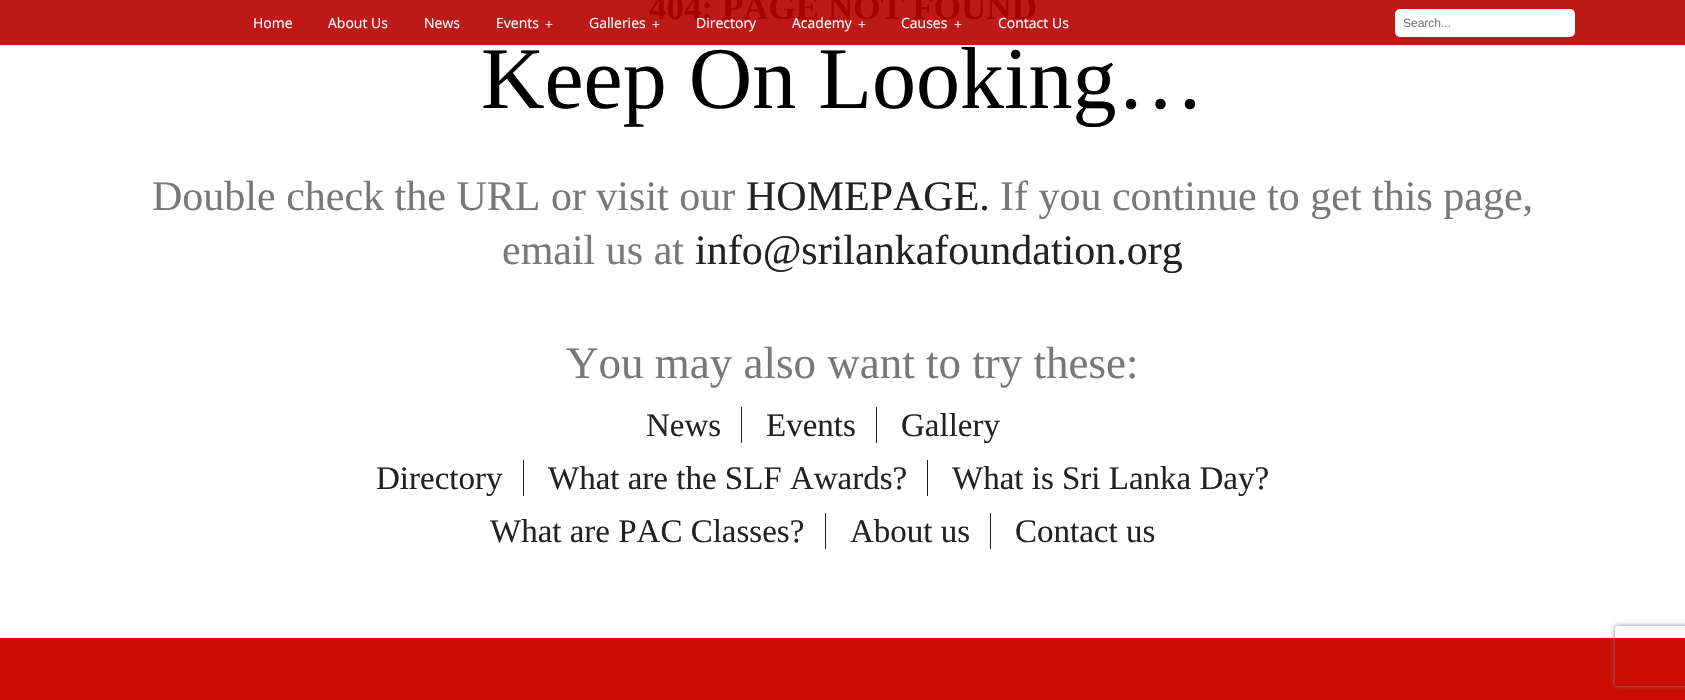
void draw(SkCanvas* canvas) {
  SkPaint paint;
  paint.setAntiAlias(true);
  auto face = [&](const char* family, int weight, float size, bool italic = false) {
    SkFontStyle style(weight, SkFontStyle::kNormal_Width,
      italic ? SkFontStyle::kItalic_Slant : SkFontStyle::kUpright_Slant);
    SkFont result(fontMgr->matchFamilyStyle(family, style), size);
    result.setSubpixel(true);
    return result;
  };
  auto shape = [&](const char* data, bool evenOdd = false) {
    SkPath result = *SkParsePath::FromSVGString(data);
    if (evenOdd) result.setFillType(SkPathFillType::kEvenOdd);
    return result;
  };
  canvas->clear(0xffffffff);
  {
    const struct { float x, y, w, h; SkColor color; } items[] = {
      {0, 0, 1685, 45, 0xffbd1919},
      {741, 407, 1, 36, 0xff222222},
      {876, 407, 1, 36, 0xff222222},
      {523, 460, 1, 36, 0xff222222},
      {927, 460, 1, 36, 0xff222222},
      {825, 513, 1, 36, 0xff222222},
      {990, 513, 1, 36, 0xff222222},
    };
    for (auto [x, y, w, h, color] : items) {
      paint.setColor(color);
      canvas->drawRect(SkRect::MakeXYWH(x, y, w, h), paint);
    }
  }
  paint.setColor(0xffffffff);
  canvas->drawRoundRect(SkRect::MakeXYWH(1395, 9, 180, 28), 5, 5, paint);
  paint.setColor(0xffcb0d01);
  canvas->drawRect(SkRect::MakeXYWH(0, 638, 1685, 62), paint);
  canvas->save();
  canvas->clipPath(shape("M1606 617H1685V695H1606ZM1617 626H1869C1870 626 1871 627 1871 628V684C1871 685 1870 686 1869 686H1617C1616 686 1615 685 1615 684V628C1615 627 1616 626 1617 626Z", true), true);
  paint.setColor(0xff808080);
  paint.setMaskFilter(SkMaskFilter::MakeBlur(kNormal_SkBlurStyle, 2.5f));
  canvas->drawRoundRect(SkRect::MakeXYWH(1615, 626, 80, 60), 2, 2, paint);
  paint.setMaskFilter(nullptr);
  canvas->restore();
  auto f0 = face("Liberation Serif", 700, 35);
  paint.setColor(0xffa40000);
  canvas->drawString("404: PAGE NOT FOUND", 649, 19, f0, paint);
  auto f1 = face("Liberation Serif", 400, 88);
  paint.setColor(0xff000000);
  canvas->drawString("Keep On Looking…", 481, 108, f1, paint);
  auto f2 = face("Liberation Serif", 400, 42);
  paint.setColor(0xff787878);
  canvas->drawString("Double check the URL or visit our", 152, 210, f2, paint);
  paint.setColor(0xff222222);
  canvas->drawString("HOMEPAGE.", 746, 210, f2, paint);
  paint.setColor(0xff787878);
  canvas->drawString("If you continue to get this page,", 1000, 210, f2, paint);
  canvas->drawString("email us at", 502, 264, f2, paint);
  paint.setColor(0xff222222);
  canvas->drawString("info@srilankafoundation.org", 695, 264, f2, paint);
  auto f3 = face("Liberation Serif", 400, 45);
  paint.setColor(0xff787878);
  canvas->drawString("You may also want to try these:", 566, 378, f3, paint);
  auto f4 = face("Liberation Serif", 400, 33);
  paint.setColor(0xff222222);
  {
    const struct { const char* s; float x, y; } items[] = {
      {"News", 646, 436},
      {"Events", 766, 436},
      {"Gallery", 901, 436},
      {"Directory", 376, 489},
      {"What are the SLF Awards?", 548, 489},
      {"What is Sri Lanka Day?", 952, 489},
      {"What are PAC Classes?", 490, 542},
      {"About us", 850, 542},
      {"Contact us", 1015, 542},
    };
    for (auto [s, x, y] : items) {
      canvas->drawString(s, x, y, f4, paint);
    }
  }
  auto f5 = face("Open Sans", 400, 14);
  paint.setColor(0xffffffff);
  {
    const struct { const char* s; float x, y; } items[] = {
      {"Home", 253, 28},
      {"About Us", 328, 28},
      {"News", 424, 28},
      {"Events", 496, 28},
    };
    for (auto [s, x, y] : items) {
      canvas->drawString(s, x, y, f5, paint);
    }
  }
  auto f6 = face("Liberation Serif", 400, 14);
  canvas->drawString("+", 545, 29, f6, paint);
  canvas->drawString("Galleries", 589, 28, f5, paint);
  canvas->drawString("+", 652, 29, f6, paint);
  canvas->drawString("Directory", 696, 28, f5, paint);
  canvas->drawString("Academy", 792, 28, f5, paint);
  canvas->drawString("+", 858, 29, f6, paint);
  canvas->drawString("Causes", 901, 28, f5, paint);
  canvas->drawString("+", 954, 29, f6, paint);
  canvas->drawString("Contact Us", 998, 28, f5, paint);
  auto f7 = face("Liberation Sans", 400, 12);
  paint.setColor(0xff787878);
  canvas->drawString("Search...", 1403, 27, f7, paint);
}
